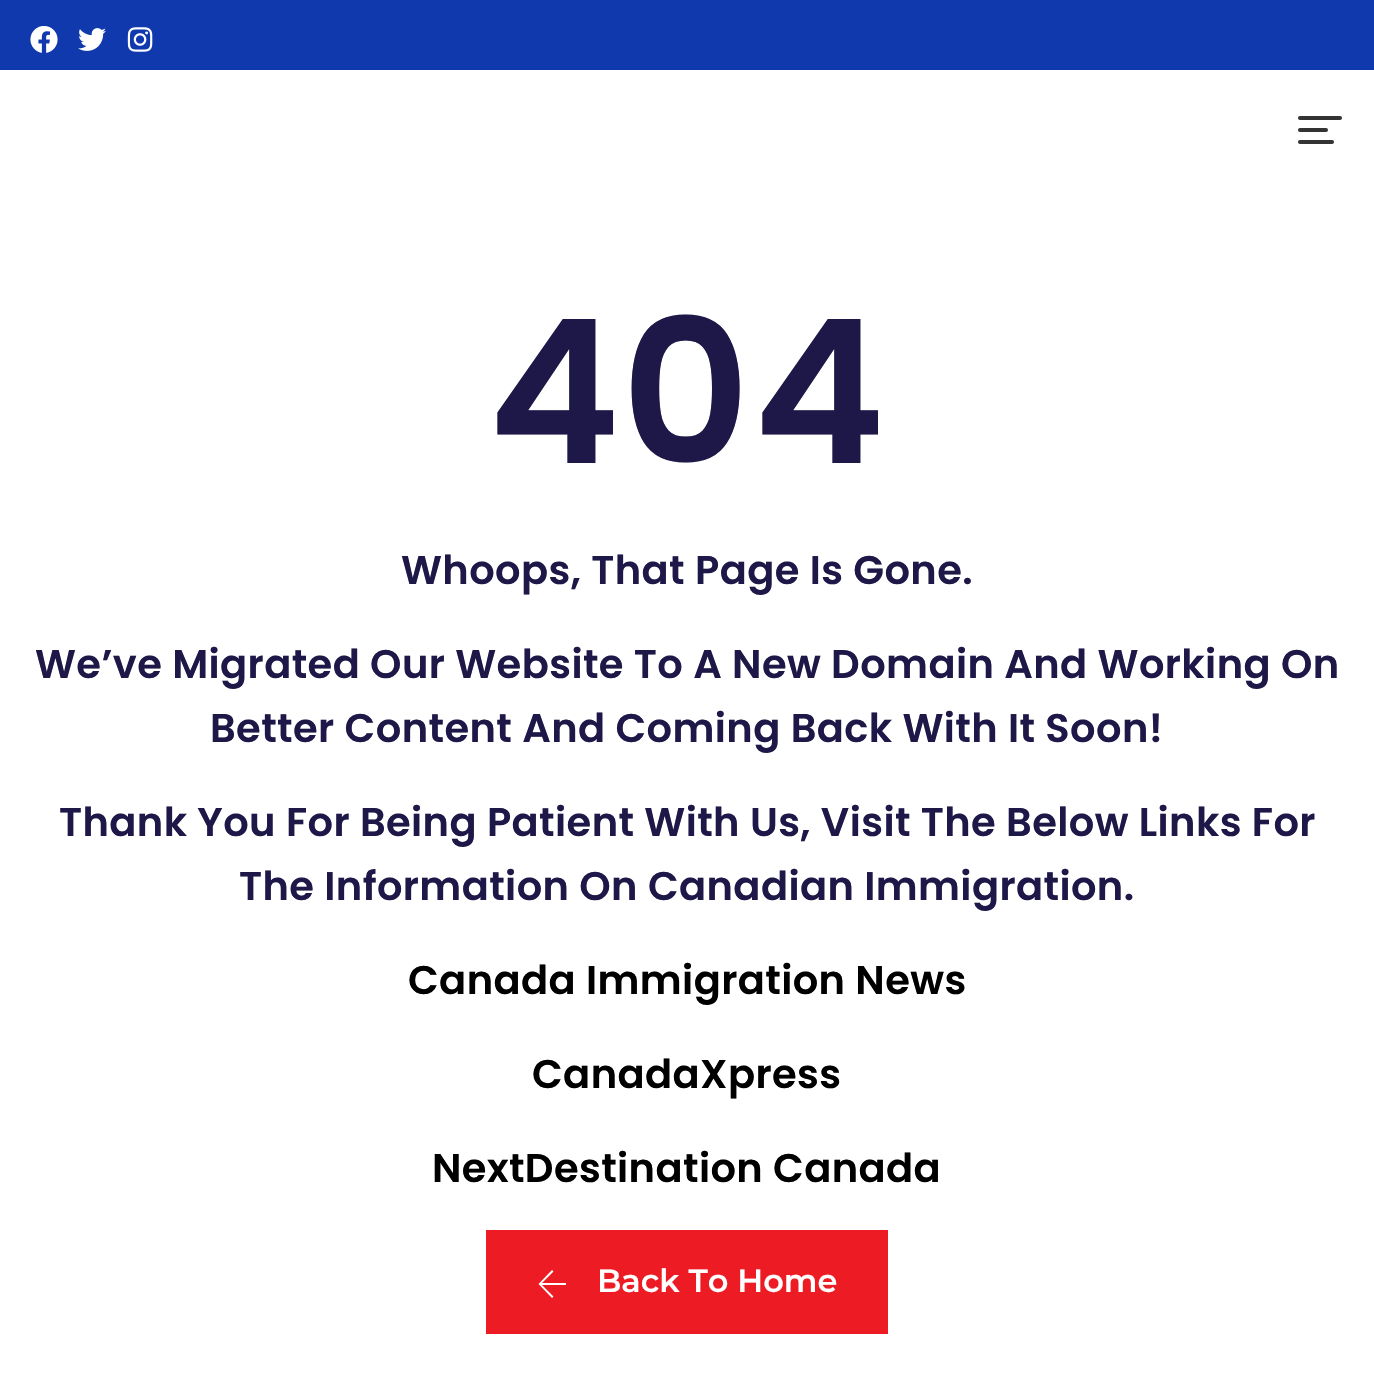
void draw(SkCanvas* canvas) {
  SkPaint paint;
  paint.setAntiAlias(true);
  auto face = [&](const char* family, int weight, float size, bool italic = false) {
    SkFontStyle style(weight, SkFontStyle::kNormal_Width,
      italic ? SkFontStyle::kItalic_Slant : SkFontStyle::kUpright_Slant);
    SkFont result(fontMgr->matchFamilyStyle(family, style), size);
    result.setSubpixel(true);
    return result;
  };
  auto writeSpaced = [&](const char* s, float x, float y, const SkFont& font, const SkPaint& ink, float letter, float word) {
    std::vector<SkGlyphID> glyphs(font.countText(s, strlen(s), SkTextEncoding::kUTF8));
    std::vector<float> xs(glyphs.size());
    font.textToGlyphs(s, strlen(s), SkTextEncoding::kUTF8, glyphs);
    font.getXPos(glyphs, xs, x);
    float extra = 0;
    for (size_t i = 0; i < glyphs.size(); i++) {
      xs[i] += extra;
      extra += letter + word * (glyphs[i] == font.unicharToGlyph(' '));
    }
    canvas->drawTextBlob(SkTextBlob::MakeFromPosHGlyphs(glyphs, xs, y, font), 0, 0, ink);
  };
  auto paste = [&](const char* path, float x, float y, float w, float h) {
    auto image = SkImages::DeferredFromEncodedData(SkData::MakeFromFileName(path));
    canvas->drawImageRect(image, SkRect::MakeXYWH(x, y, w, h), SkSamplingOptions());
  };
  auto shape = [&](const char* data, bool evenOdd = false) {
    SkPath result = *SkParsePath::FromSVGString(data);
    if (evenOdd) result.setFillType(SkPathFillType::kEvenOdd);
    return result;
  };
  canvas->clear(0xffffffff);
  paint.setColor(0xff1039ae);
  canvas->drawRect(SkRect::MakeXYWH(0, 0, 1374, 70), paint);
  paste("img/1.png", 30, 26, 28, 27);
  paste("img/2.png", 78, 28, 28, 23);
  paste("img/3.png", 127, 27, 26, 25);
  paint.setColor(0xff333333);
  canvas->drawRoundRect(SkRect::MakeXYWH(1298, 128, 30, 4), 2, 2, paint);
  canvas->drawRoundRect(SkRect::MakeXYWH(1298, 116, 44, 4), 2, 2, paint);
  canvas->drawRoundRect(SkRect::MakeXYWH(1298, 140, 36, 4), 2, 2, paint);
  paint.setColor(0xffed1b24);
  canvas->drawRect(SkRect::MakeXYWH(486, 1230, 402, 104), paint);
  paint.setColor(0xffffffff);
  canvas->drawPath(shape("M566 1285H542L553.5 1296.5L552 1298L538.5 1284L552 1270L553.5 1271.5L542 1283H566Z"), paint);
  auto f0 = face("Poppins", 600, 200);
  paint.setColor(0xff1d1847);
  {
    const struct { const char* s; float x, y; } items[] = {
      {"4", 488, 463},
      {"0", 621, 463},
      {"4", 753, 463},
    };
    for (auto [s, x, y] : items) {
      writeSpaced(s, x, y, f0, paint, 4, 0);
    }
  }
  auto f1 = face("Poppins", 600, 40);
  {
    const struct { const char* s; float x, y; } items[] = {
      {"Whoops, That Page Is Gone.", 401, 584},
      {"We’ve Migrated Our Website To A New Domain And Working On", 35, 678},
      {"Better Content And Coming Back With It Soon!", 210, 742},
      {"Thank You For Being Patient With Us, Visit The Below Links For", 59, 836},
      {"The Information On Canadian Immigration.", 239, 900},
    };
    for (auto [s, x, y] : items) {
      writeSpaced(s, x, y, f1, paint, 0.4f, 0);
    }
  }
  paint.setColor(0xff000000);
  {
    const struct { const char* s; float x, y; } items[] = {
      {"Canada Immigration News", 408, 994},
      {"CanadaXpress", 532, 1088},
      {"NextDestination Canada", 432, 1182},
    };
    for (auto [s, x, y] : items) {
      writeSpaced(s, x, y, f1, paint, 0.4f, 0);
    }
  }
  auto f2 = face("Montserrat", 600, 32);
  paint.setColor(0xffffffff);
  canvas->drawString("Back To Home", 597, 1292, f2, paint);
}
